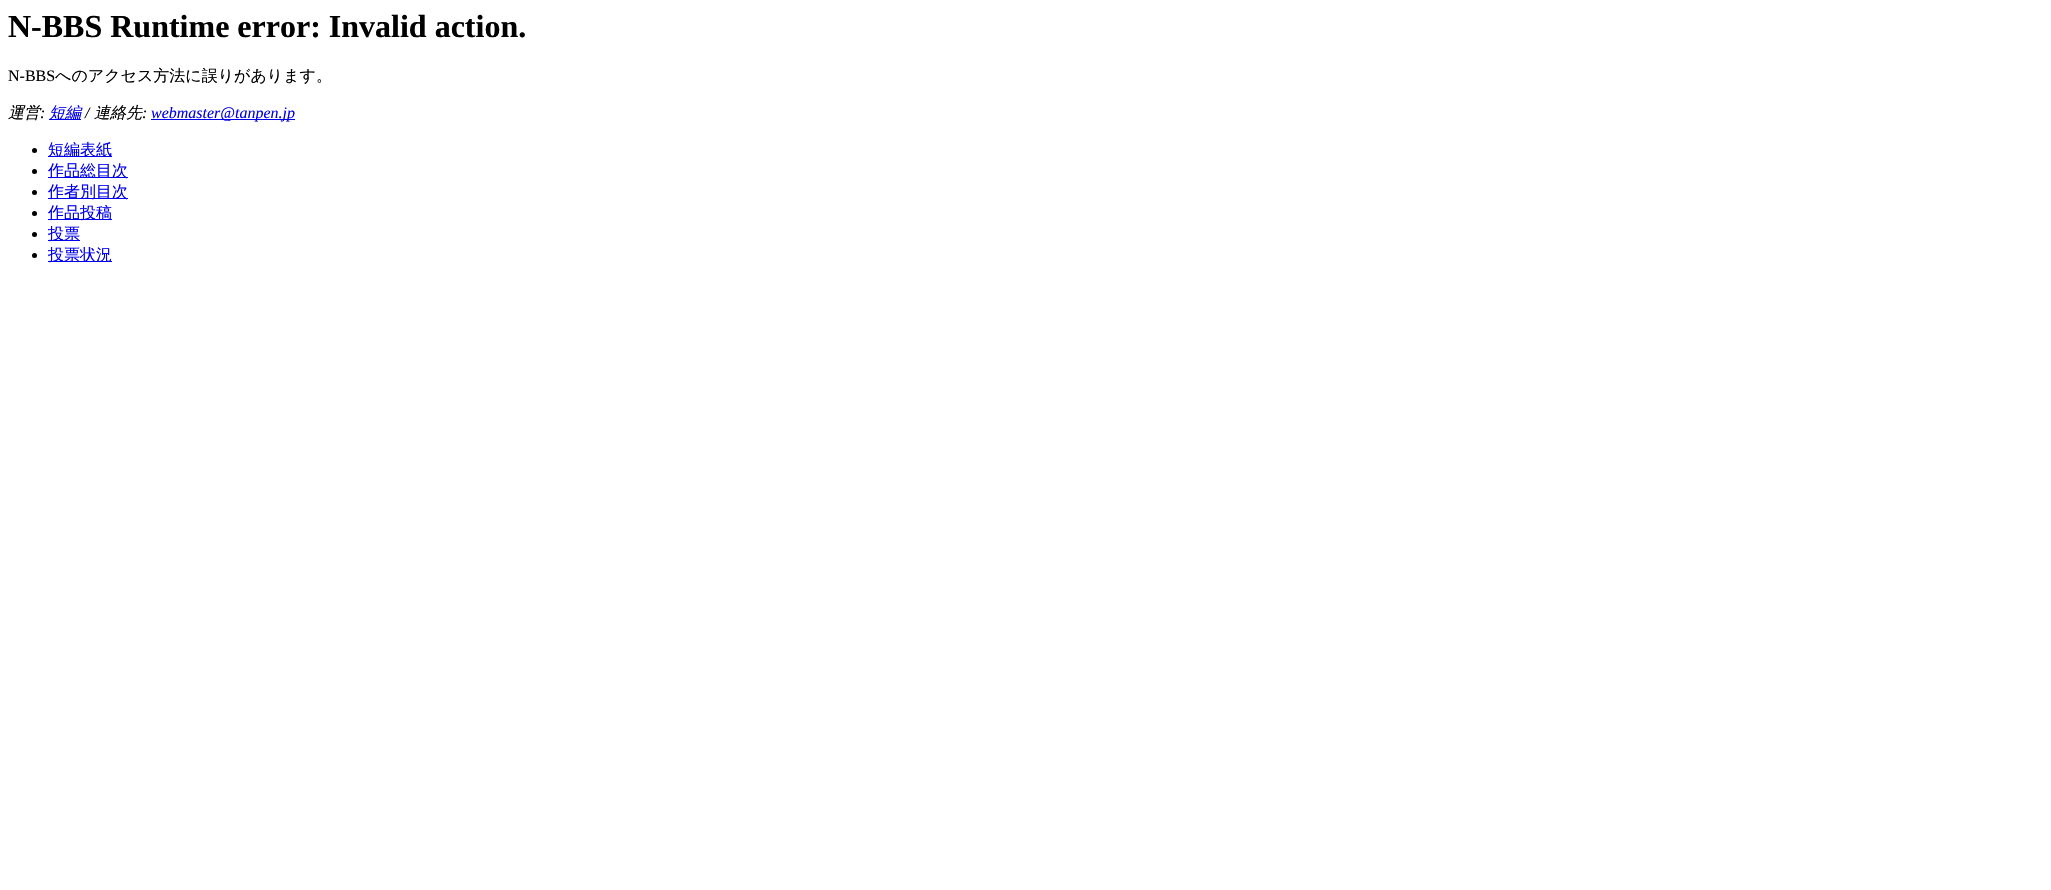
void draw(SkCanvas* canvas) {
  SkPaint paint;
  paint.setAntiAlias(true);
  auto face = [&](const char* family, int weight, float size, bool italic = false) {
    SkFontStyle style(weight, SkFontStyle::kNormal_Width,
      italic ? SkFontStyle::kItalic_Slant : SkFontStyle::kUpright_Slant);
    SkFont result(fontMgr->matchFamilyStyle(family, style), size);
    result.setSubpixel(true);
    return result;
  };
  canvas->clear(0xffffffff);
  paint.setColor(0xff0000ee);
  canvas->drawRect(SkRect::MakeXYWH(49, 119, 32, 1), paint);
  canvas->drawRect(SkRect::MakeXYWH(151, 119, 144, 1), paint);
  paint.setColor(0xff000000);
  canvas->drawCircle(34.5f, 150.5f, 2.5f, paint);
  paint.setColor(0xff0000ee);
  canvas->drawRect(SkRect::MakeXYWH(48, 156, 64, 1), paint);
  paint.setColor(0xff000000);
  canvas->drawCircle(34.5f, 171.5f, 2.5f, paint);
  paint.setColor(0xff0000ee);
  canvas->drawRect(SkRect::MakeXYWH(48, 177, 80, 1), paint);
  paint.setColor(0xff000000);
  canvas->drawCircle(34.5f, 192.5f, 2.5f, paint);
  paint.setColor(0xff0000ee);
  canvas->drawRect(SkRect::MakeXYWH(48, 198, 80, 1), paint);
  paint.setColor(0xff000000);
  canvas->drawCircle(34.5f, 213.5f, 2.5f, paint);
  paint.setColor(0xff0000ee);
  canvas->drawRect(SkRect::MakeXYWH(48, 219, 64, 1), paint);
  paint.setColor(0xff000000);
  canvas->drawCircle(34.5f, 234.5f, 2.5f, paint);
  paint.setColor(0xff0000ee);
  canvas->drawRect(SkRect::MakeXYWH(48, 240, 32, 1), paint);
  paint.setColor(0xff000000);
  canvas->drawCircle(34.5f, 255.5f, 2.5f, paint);
  paint.setColor(0xff0000ee);
  canvas->drawRect(SkRect::MakeXYWH(48, 261, 64, 1), paint);
  auto f0 = face("Liberation Serif", 700, 32);
  paint.setColor(0xff000000);
  canvas->drawString("N-BBS Runtime error: Invalid action.", 8, 37, f0, paint);
  auto f1 = face("Liberation Serif", 400, 16);
  canvas->drawString("N-BBS", 8, 81, f1, paint);
  auto f2 = face("WenQuanYi Zen Hei", 500, 16);
  canvas->drawString("へのアクセス方法に誤りがあります。", 55, 81, f2, paint);
  auto f3 = face("WenQuanYi Zen Hei", 500, 16, true);
  canvas->drawString("運営", 8, 118, f3, paint);
  auto f4 = face("Liberation Serif", 400, 16, true);
  canvas->drawString(":", 40, 118, f4, paint);
  paint.setColor(0xff0000ee);
  canvas->drawString("短編", 49, 118, f3, paint);
  paint.setColor(0xff000000);
  canvas->drawString("/", 85, 118, f4, paint);
  canvas->drawString("連絡先", 94, 118, f3, paint);
  canvas->drawString(":", 142, 118, f4, paint);
  paint.setColor(0xff0000ee);
  canvas->drawString("webmaster@tanpen.jp", 151, 118, f4, paint);
  {
    const struct { const char* s; float x, y; } items[] = {
      {"短編表紙", 48, 155},
      {"作品総目次", 48, 176},
      {"作者別目次", 48, 197},
      {"作品投稿", 48, 218},
      {"投票", 48, 239},
      {"投票状況", 48, 260},
    };
    for (auto [s, x, y] : items) {
      canvas->drawString(s, x, y, f2, paint);
    }
  }
}
